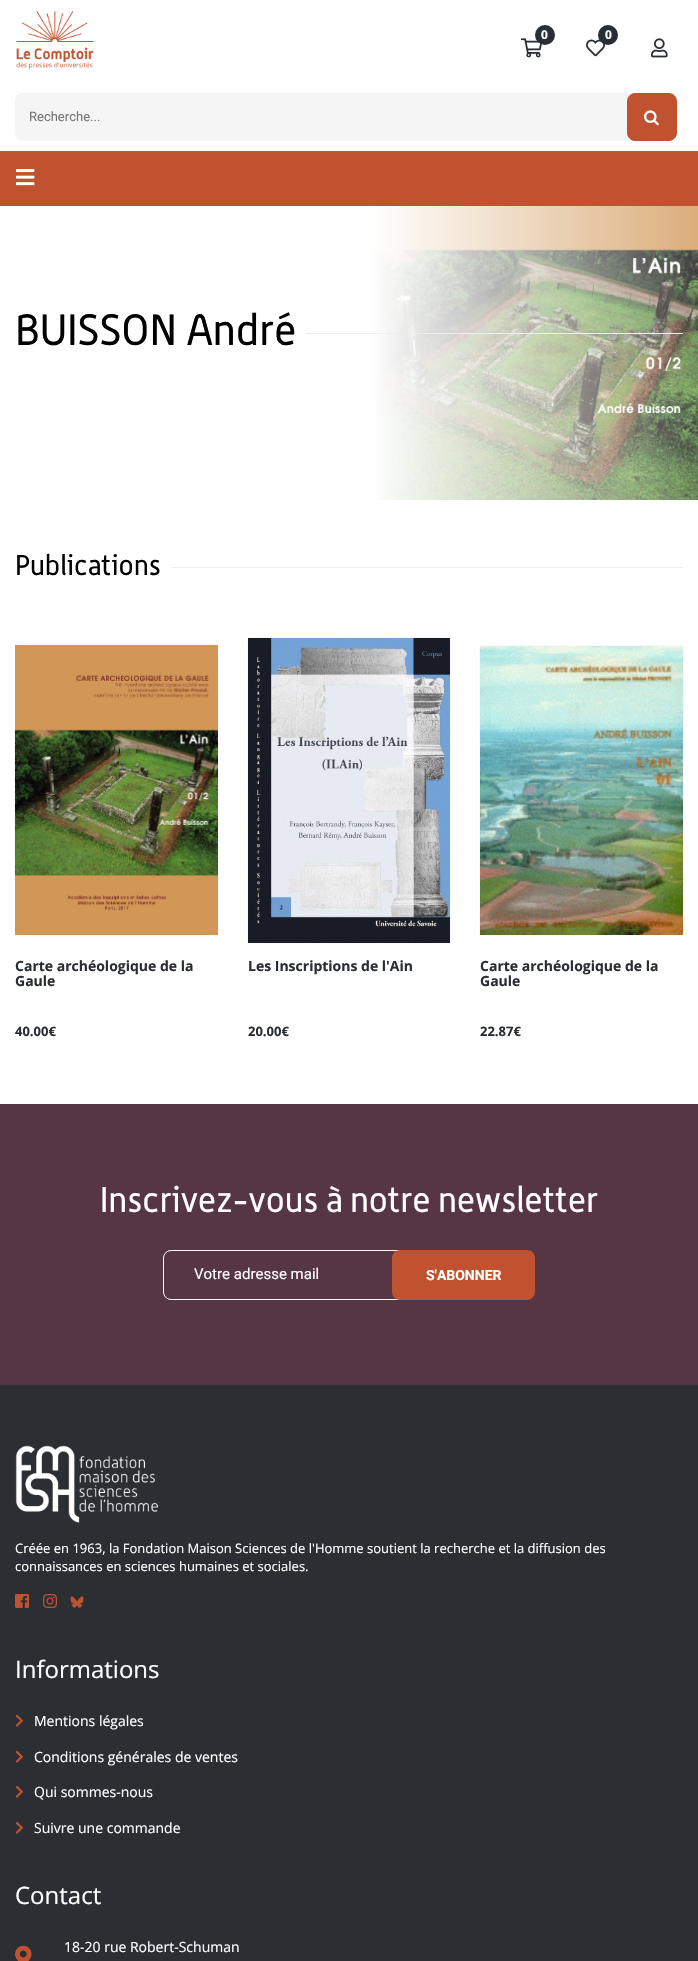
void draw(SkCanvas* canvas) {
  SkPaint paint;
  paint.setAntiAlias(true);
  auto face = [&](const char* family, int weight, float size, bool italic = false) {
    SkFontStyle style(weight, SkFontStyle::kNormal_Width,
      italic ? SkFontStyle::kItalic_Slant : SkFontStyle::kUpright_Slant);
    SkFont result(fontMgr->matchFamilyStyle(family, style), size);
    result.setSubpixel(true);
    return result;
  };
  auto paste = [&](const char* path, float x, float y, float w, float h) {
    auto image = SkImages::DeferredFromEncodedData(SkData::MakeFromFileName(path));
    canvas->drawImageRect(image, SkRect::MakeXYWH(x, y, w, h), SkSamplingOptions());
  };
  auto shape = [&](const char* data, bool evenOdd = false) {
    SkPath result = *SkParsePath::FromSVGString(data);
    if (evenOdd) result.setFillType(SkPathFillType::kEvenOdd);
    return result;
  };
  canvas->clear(0xffffffff);
  paste("img/1.png", 15, 11, 79, 59);
  paste("img/2.png", 521, 38, 21, 20);
  paint.setColor(0xff2a2e33);
  canvas->drawCircle(545, 35, 10, paint);
  paste("img/3.png", 586, 39, 19, 18);
  canvas->drawCircle(608, 35, 10, paint);
  paste("img/4.png", 651, 38, 17, 20);
  paint.setColor(0xfff5f5f5);
  canvas->drawPath(shape("M23 93H633V141H23C18.5 141 15 137.5 15 133V101C15 96.5 18.5 93 23 93Z"), paint);
  paint.setColor(0xffc0522f);
  canvas->drawRoundRect(SkRect::MakeXYWH(627.5f, 93.5f, 49, 47), 7.5f, 7.5f, paint);
  paint.setStroke(true);
  paint.setStrokeWidth(1);
  canvas->drawRoundRect(SkRect::MakeXYWH(627.5f, 93.5f, 49, 47), 7.5f, 7.5f, paint);
  paste("img/5.png", 644, 110, 15, 16);
  paint.setStroke(false);
  canvas->drawRect(SkRect::MakeXYWH(0, 151, 698, 55), paint);
  paste("img/6.png", 16, 169, 19, 17);
  paste("img/7.png", 372, 206, 326, 294);
  {
    const SkColor colors[] = {0xffffffff, 0x00ffffff};
    const float stops[] = {0.1f, 0.85f};
    const SkPoint ends[] = {{314, 353}, {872, 353}};
    paint.setShader(SkGradientShader::MakeLinear(ends, colors, stops, 2, SkTileMode::kClamp));
    paint.setAlpha(255);
  }
  canvas->drawRect(SkRect::MakeXYWH(372, 206, 326, 294), paint);
  paint.setShader(nullptr);
  paint.setColor(0xffebeef3);
  canvas->drawRect(SkRect::MakeXYWH(306, 333, 377, 1), paint);
  canvas->drawRect(SkRect::MakeXYWH(171, 567, 512, 1), paint);
  paste("img/8.png", 14, 644, 205, 292);
  paste("img/9.png", 247, 637, 204, 307);
  paste("img/10.png", 479, 645, 205, 291);
  paint.setColor(0xff2b2e33);
  canvas->drawRect(SkRect::MakeXYWH(0, 1385, 698, 576), paint);
  paint.setColor(0xff563645);
  canvas->drawRect(SkRect::MakeXYWH(0, 1104, 698, 281), paint);
  paint.setStroke(true);
  paint.setColor(0xffffffff);
  canvas->drawRoundRect(SkRect::MakeXYWH(163.5f, 1250.5f, 249, 49), 7.5f, 7.5f, paint);
  paint.setStroke(false);
  paint.setColor(0xffc0522f);
  canvas->drawRoundRect(SkRect::MakeXYWH(392, 1250, 143, 50), 8, 8, paint);
  paste("img/11.png", 15, 1445, 143, 78);
  paste("img/12.png", 15, 1594, 14, 14);
  paste("img/13.png", 43, 1594, 14, 14);
  paste("img/14.png", 70, 1596, 14, 12);
  paste("img/15.png", 15, 1714, 8, 13);
  paste("img/15.png", 15, 1750, 8, 13);
  paste("img/15.png", 15, 1785, 8, 13);
  paste("img/15.png", 15, 1821, 8, 13);
  paste("img/16.png", 15, 1945, 17, 16);
  auto f0 = face("Open Sans", 700, 12);
  paint.setColor(0xffffffff);
  canvas->drawString("0", 541, 39, f0, paint);
  canvas->drawString("0", 605, 39, f0, paint);
  auto f1 = face("Roboto", 400, 13);
  paint.setColor(0xff757575);
  canvas->drawString("Recherche...", 29, 121, f1, paint);
  auto f2 = face("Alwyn", 400, 43);
  paint.setColor(0xff000000);
  canvas->drawString("BUISSON André", 15, 345, f2, paint);
  auto f3 = face("Alwyn", 400, 28);
  canvas->drawString("Publications", 15, 575, f3, paint);
  auto f4 = face("Open Sans", 700, 14);
  paint.setColor(0xff2a2e33);
  canvas->drawString("Carte archéologique de la", 15, 971, f4, paint);
  canvas->drawString("Gaule", 15, 986, f4, paint);
  auto f5 = face("Open Sans", 700, 13);
  canvas->drawString("40.00€", 15, 1036, f5, paint);
  canvas->drawString("Les Inscriptions de l'Ain", 248, 971, f4, paint);
  canvas->drawString("20.00€", 248, 1036, f5, paint);
  canvas->drawString("Carte archéologique de la", 480, 971, f4, paint);
  canvas->drawString("Gaule", 480, 986, f4, paint);
  canvas->drawString("22.87€", 480, 1036, f5, paint);
  auto f6 = face("Alwyn", 400, 35);
  paint.setColor(0xffffffff);
  canvas->drawString("Inscrivez-vous à notre newsletter", 100, 1212, f6, paint);
  auto f7 = face("Roboto", 400, 15);
  canvas->drawString("Votre adresse mail", 194, 1279, f7, paint);
  auto f8 = face("Roboto", 700, 14);
  canvas->drawString("S'ABONNER", 426, 1280, f8, paint);
  auto f9 = face("Open Sans", 400, 13);
  canvas->drawString("Créée en 1963, la Fondation Maison Sciences de l'Homme soutient la recherche et la diffusion des", 15, 1553, f9, paint);
  canvas->drawString("connaissances en sciences humaines et sociales.", 15, 1571, f9, paint);
  auto f10 = face("Open Sans", 400, 24);
  canvas->drawString("Informations", 15, 1678, f10, paint);
  auto f11 = face("Open Sans", 400, 14);
  {
    const struct { const char* s; float x, y; } items[] = {
      {"Mentions légales", 34, 1726},
      {"Conditions générales de ventes", 34, 1762},
      {"Qui sommes-nous", 34, 1797},
      {"Suivre une commande", 34, 1833},
    };
    for (auto [s, x, y] : items) {
      canvas->drawString(s, x, y, f11, paint);
    }
  }
  canvas->drawString("Contact", 15, 1904, f10, paint);
  canvas->drawString("18-20 rue Robert-Schuman", 64, 1952, f11, paint);
}
